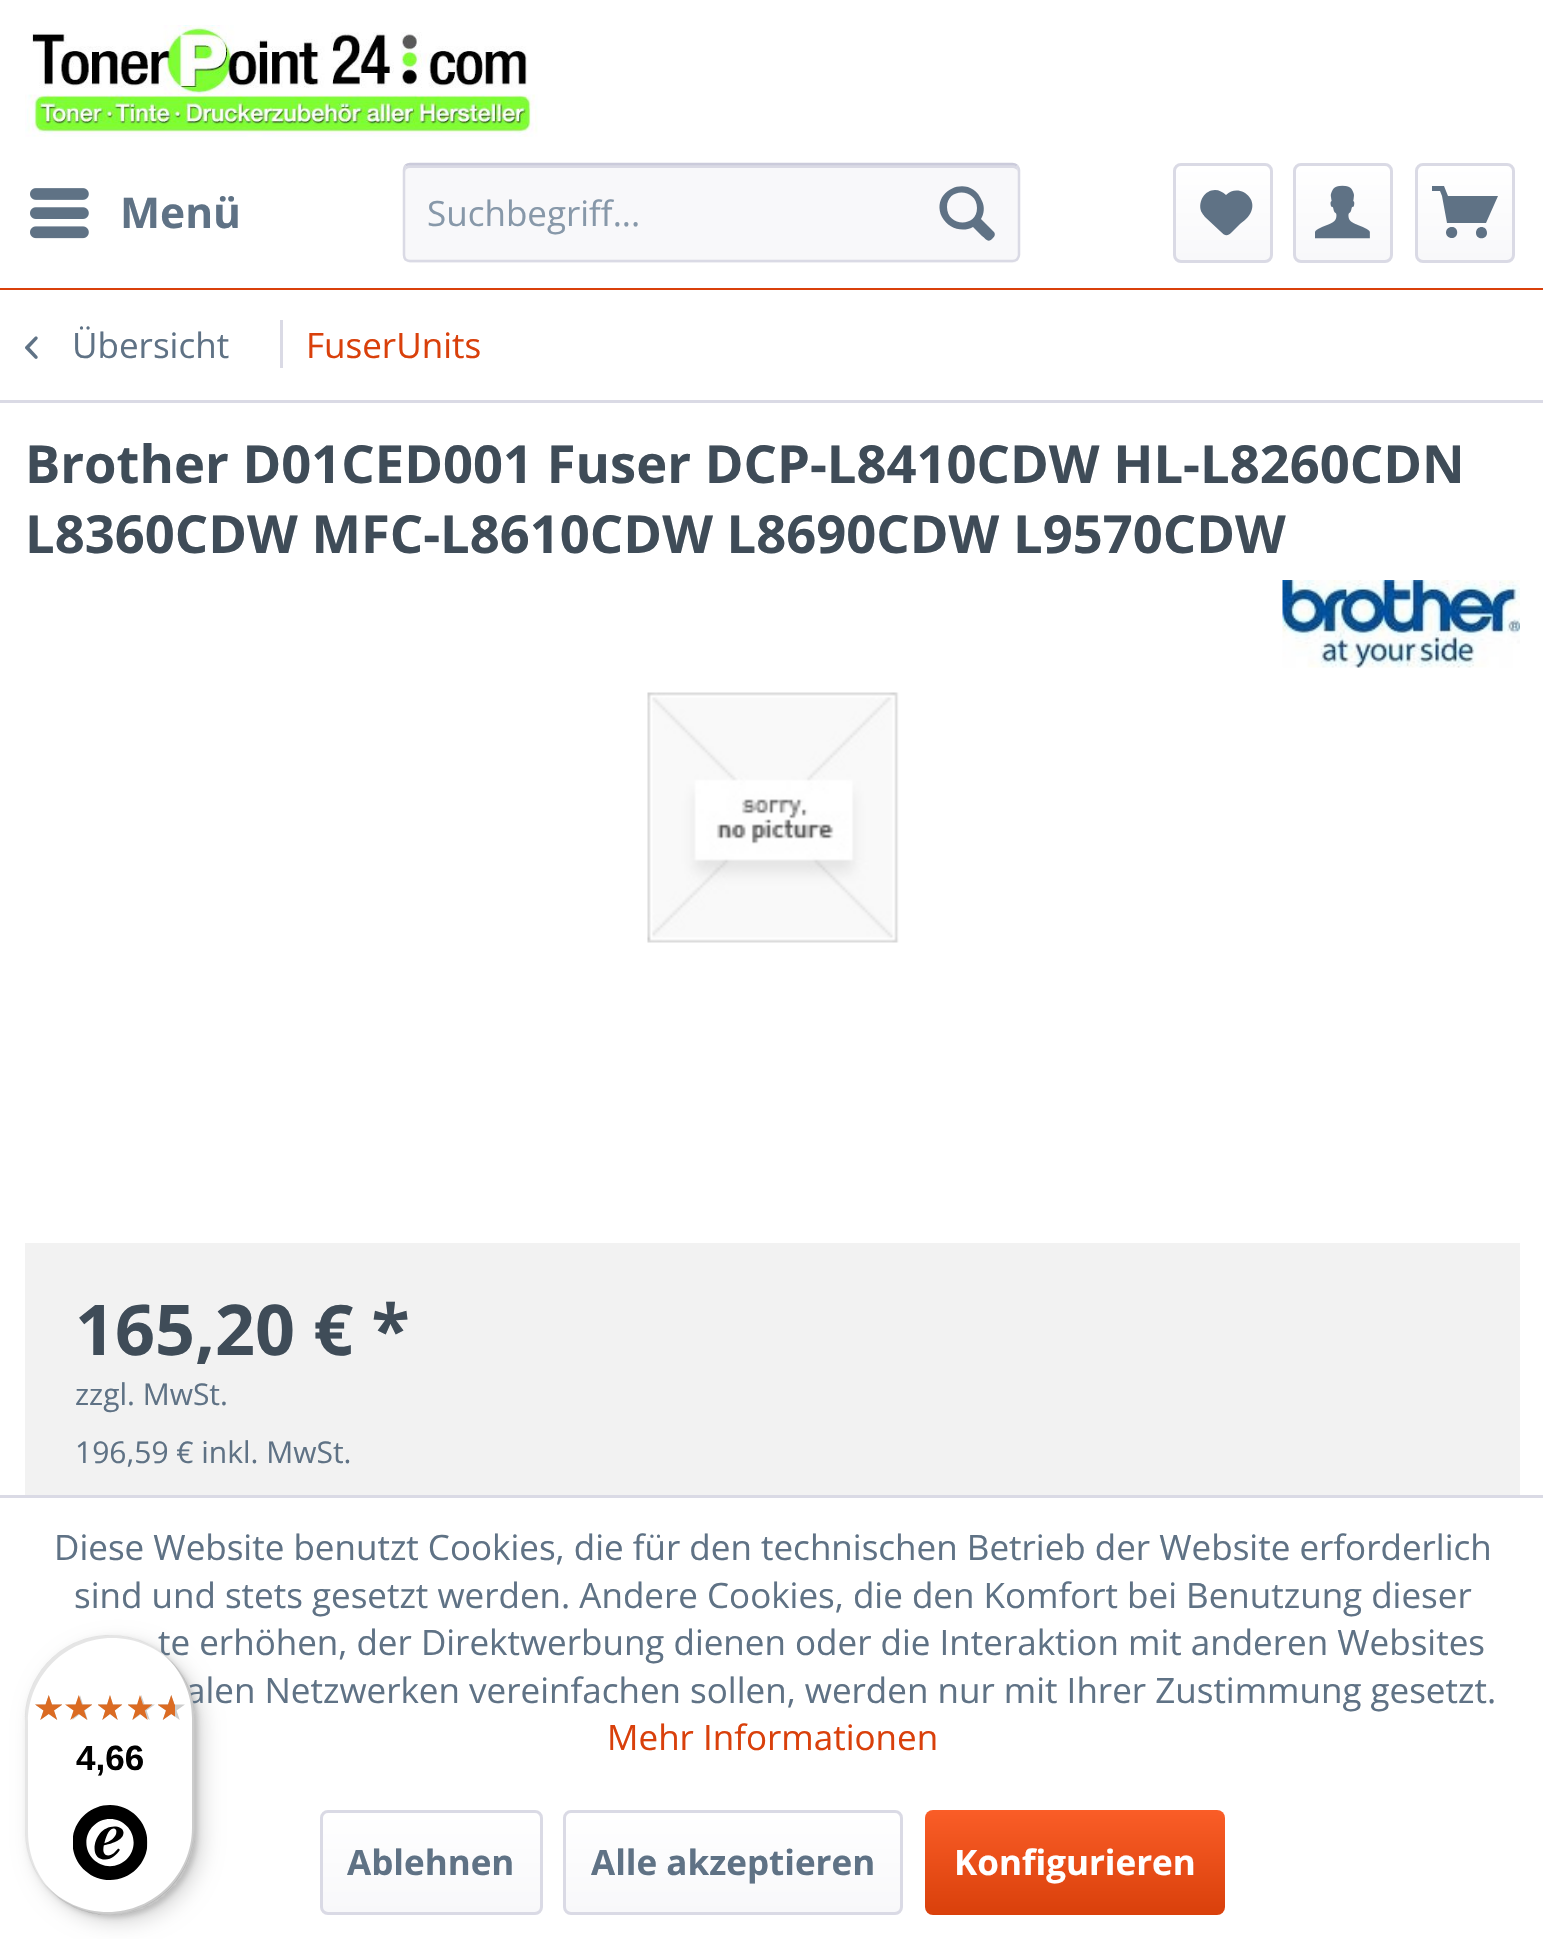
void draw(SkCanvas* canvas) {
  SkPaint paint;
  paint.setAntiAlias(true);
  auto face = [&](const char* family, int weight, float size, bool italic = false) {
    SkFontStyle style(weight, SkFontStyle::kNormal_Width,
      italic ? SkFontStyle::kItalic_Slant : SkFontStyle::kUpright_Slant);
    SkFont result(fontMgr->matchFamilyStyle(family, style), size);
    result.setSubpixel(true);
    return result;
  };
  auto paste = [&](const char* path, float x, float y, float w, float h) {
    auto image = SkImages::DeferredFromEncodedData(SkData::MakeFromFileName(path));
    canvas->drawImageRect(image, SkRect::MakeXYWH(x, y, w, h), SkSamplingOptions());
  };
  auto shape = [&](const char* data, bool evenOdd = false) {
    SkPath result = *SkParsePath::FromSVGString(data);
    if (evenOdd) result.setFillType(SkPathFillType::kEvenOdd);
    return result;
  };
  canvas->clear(0xffffffff);
  paint.setColor(0xffd9400b);
  canvas->drawRect(SkRect::MakeXYWH(0, 288, 1543, 2), paint);
  paste("img/1.png", 25, 25, 513, 112);
  paste("img/2.png", 30, 188, 59, 51);
  paint.setColor(0xfff8f8fa);
  canvas->drawRoundRect(SkRect::MakeXYWH(403, 163, 617, 100), 8, 8, paint);
  paint.setColor(0xffdadae5);
  canvas->drawPath(shape("M410 168H1012C1015 168 1018 170 1018 172C1018 169 1017 165 1013 165H410C406 165 405 169 405 172C405 170 407 168 410 168Z"), paint);
  paint.setStroke(true);
  paint.setStrokeWidth(2.5f);
  paint.setColor(0xffcbcbdb);
  canvas->drawPath(shape("M405.5 165.5C407 164.5 408.5 164 410 164H1012.5C1014 164 1015.5 164.5 1017 165.5"), paint);
  paint.setColor(0xffdadae5);
  canvas->drawPath(shape("M1017 165.5C1018 167 1019 168.5 1019 170V255C1019 256.5 1018 258 1017 259.5C1015.5 260.5 1014 261 1012.5 261H410C408.5 261 407 260.5 405.5 259.5C404.5 258 404 256.5 404 255V170C404 168.5 404.5 167 405.5 165.5"), paint);
  paint.setStroke(false);
  paint.setColor(0xff5f7285);
  canvas->drawPath(shape("M994 232L981 219C984 214 985 207 982 201C971 172 929 190 942 217C948 228 962 233 973 227L982 236C986 239 988 243 992 239C994 237 996 235 994 232ZM947 207C947 187 977 188 977 208C977 228 947 227 947 207Z"), paint);
  {
    const SkColor colors[] = {0xffffffff, 0xfff8f8fa};
    const float stops[] = {0, 1};
    const SkPoint ends[] = {{1223, 165}, {1223, 260}};
    paint.setShader(SkGradientShader::MakeLinear(ends, colors, stops, 2, SkTileMode::kClamp));
    paint.setAlpha(255);
  }
  canvas->drawRoundRect(SkRect::MakeXYWH(1175, 165, 95, 95), 5, 5, paint);
  paint.setStroke(true);
  paint.setStrokeWidth(3);
  paint.setShader(nullptr);
  paint.setColor(0xffdadae5);
  canvas->drawRoundRect(SkRect::MakeXYWH(1174.5f, 164.5f, 97, 97), 6.5f, 6.5f, paint);
  paint.setStroke(false);
  paint.setColor(0xff5f7285);
  canvas->drawPath(shape("M1215 190C1205 190 1198 201 1201 211C1201 212 1205 217 1205 217L1220 231C1225 236 1227 237 1232 232L1240 224C1244 221 1249 217 1251 212C1258 197 1238 183 1226 195C1223 192 1219 190 1215 190Z"), paint);
  {
    const SkColor colors[] = {0xffffffff, 0xfff8f8fa};
    const float stops[] = {0, 1};
    const SkPoint ends[] = {{1343, 165}, {1343, 260}};
    paint.setShader(SkGradientShader::MakeLinear(ends, colors, stops, 2, SkTileMode::kClamp));
    paint.setAlpha(255);
  }
  canvas->drawRoundRect(SkRect::MakeXYWH(1295, 165, 95, 95), 5, 5, paint);
  paint.setStroke(true);
  paint.setShader(nullptr);
  paint.setColor(0xffdadae5);
  canvas->drawRoundRect(SkRect::MakeXYWH(1294.5f, 164.5f, 97, 97), 6.5f, 6.5f, paint);
  paste("img/3.png", 1315, 185, 55, 54);
  paint.setStroke(false);
  {
    const SkColor colors[] = {0xffffffff, 0xfff8f8fa};
    const float stops[] = {0, 1};
    const SkPoint ends[] = {{1465, 165}, {1465, 260}};
    paint.setShader(SkGradientShader::MakeLinear(ends, colors, stops, 2, SkTileMode::kClamp));
    paint.setAlpha(255);
  }
  canvas->drawRoundRect(SkRect::MakeXYWH(1418, 165, 95, 95), 5, 5, paint);
  paint.setStroke(true);
  paint.setShader(nullptr);
  paint.setColor(0xffdadae5);
  canvas->drawRoundRect(SkRect::MakeXYWH(1416.5f, 164.5f, 97, 97), 6.5f, 6.5f, paint);
  paint.setStroke(false);
  paint.setColor(0xff5f7285);
  canvas->drawPath(shape("M1447 223H1486L1498 196H1448L1444 186H1432V191H1440L1442 196ZM1452 227C1444 227 1444 238 1452 238C1459 238 1459 227 1452 227ZM1487 233C1487 240 1476 240 1476 233C1476 225 1487 225 1487 233Z"), paint);
  paint.setColor(0xffdadae5);
  canvas->drawRect(SkRect::MakeXYWH(0, 400, 1543, 3), paint);
  paste("img/4.png", 25, 336, 13, 23);
  canvas->drawRect(SkRect::MakeXYWH(280, 320, 3, 48), paint);
  paste("img/5.png", 1282, 580, 238, 88);
  paste("img/6.png", 647, 692, 252, 251);
  paint.setColor(0xfff2f2f2);
  canvas->drawRect(SkRect::MakeXYWH(25, 1243, 1495, 252), paint);
  paint.setColor(0xffdadae5);
  canvas->drawRect(SkRect::MakeXYWH(0, 1495, 1543, 3), paint);
  {
    const SkColor colors[] = {0xffffffff, 0xfff8f8fa};
    const float stops[] = {0, 1};
    const SkPoint ends[] = {{431, 1813}, {431, 1913}};
    paint.setShader(SkGradientShader::MakeLinear(ends, colors, stops, 2, SkTileMode::kClamp));
    paint.setAlpha(255);
  }
  canvas->drawRoundRect(SkRect::MakeXYWH(323, 1813, 217, 100), 5, 5, paint);
  paint.setStroke(true);
  paint.setShader(nullptr);
  paint.setColor(0xffdadae5);
  canvas->drawRoundRect(SkRect::MakeXYWH(321.5f, 1811.5f, 220, 102), 6.5f, 6.5f, paint);
  paint.setStroke(false);
  {
    const SkColor colors[] = {0xffffffff, 0xfff8f8fa};
    const float stops[] = {0, 1};
    const SkPoint ends[] = {{733, 1813}, {733, 1913}};
    paint.setShader(SkGradientShader::MakeLinear(ends, colors, stops, 2, SkTileMode::kClamp));
    paint.setAlpha(255);
  }
  canvas->drawRoundRect(SkRect::MakeXYWH(565, 1813, 335, 100), 5, 5, paint);
  paint.setStroke(true);
  paint.setShader(nullptr);
  paint.setColor(0xffdadae5);
  canvas->drawRoundRect(SkRect::MakeXYWH(564.5f, 1811.5f, 337, 102), 6.5f, 6.5f, paint);
  paint.setStroke(false);
  {
    const SkColor colors[] = {0xfffa5d27, 0xffd9400b};
    const float stops[] = {0, 1};
    const SkPoint ends[] = {{1075, 1810}, {1075, 1915}};
    paint.setShader(SkGradientShader::MakeLinear(ends, colors, stops, 2, SkTileMode::kClamp));
    paint.setAlpha(255);
  }
  canvas->drawRoundRect(SkRect::MakeXYWH(925, 1810, 300, 105), 8, 8, paint);
  paint.setShader(nullptr);
  paint.setColor(0x26000000);
  paint.setMaskFilter(SkMaskFilter::MakeBlur(kNormal_SkBlurStyle, 10));
  canvas->drawRoundRect(SkRect::MakeXYWH(33, 1643, 170, 280), 85, 85, paint);
  paint.setMaskFilter(nullptr);
  paint.setMaskFilter(SkMaskFilter::MakeBlur(kNormal_SkBlurStyle, 2.5f));
  canvas->drawRoundRect(SkRect::MakeXYWH(28, 1638, 170, 280), 85, 85, paint);
  paint.setMaskFilter(nullptr);
  auto f0 = face("Open Sans", 700, 42.5f);
  paint.setColor(0xff5f7285);
  canvas->drawString("Menü", 120, 228, f0, paint);
  auto f1 = face("Open Sans", 400, 35);
  paint.setColor(0xff8798a9);
  canvas->drawString("Suchbegriff...", 427, 226, f1, paint);
  paint.setColor(0xff5f7285);
  canvas->drawString("Übersicht", 72, 358, f1, paint);
  paint.setColor(0xffd9400b);
  canvas->drawString("FuserUnits", 306, 358, f1, paint);
  auto f2 = face("Open Sans", 700, 52.5f);
  paint.setColor(0xff3f4c58);
  canvas->drawString("Brother D01CED001 Fuser DCP-L8410CDW HL-L8260CDN", 25, 483, f2, paint);
  canvas->drawString("L8360CDW MFC-L8610CDW L8690CDW L9570CDW", 25, 553, f2, paint);
  auto f3 = face("Open Sans", 700, 70);
  canvas->drawString("165,20 € *", 75, 1355, f3, paint);
  auto f4 = face("Open Sans", 400, 30);
  paint.setColor(0xff5f7285);
  canvas->drawString("zzgl. MwSt.", 75, 1405, f4, paint);
  canvas->drawString("196,59 € inkl. MwSt.", 75, 1463, f4, paint);
  {
    const struct { const char* s; float x, y; } items[] = {
      {"Diese Website benutzt Cookies, die für den technischen Betrieb der Website erforderlich", 54, 1560},
      {"sind und stets gesetzt werden. Andere Cookies, die den Komfort bei Benutzung dieser", 74, 1608},
      {"te erhöhen, der Direktwerbung dienen oder die Interaktion mit anderen Websites", 158, 1655},
      {"alen Netzwerken vereinfachen sollen, werden nur mit Ihrer Zustimmung gesetzt.", 186, 1703},
    };
    for (auto [s, x, y] : items) {
      canvas->drawString(s, x, y, f1, paint);
    }
  }
  paint.setColor(0xffd9400b);
  canvas->drawString("Mehr Informationen", 607, 1750, f1, paint);
  auto f5 = face("Open Sans", 700, 35);
  paint.setColor(0xff5f7285);
  canvas->drawString("Ablehnen", 347, 1875, f5, paint);
  canvas->drawString("Alle akzeptieren", 591, 1875, f5, paint);
  paint.setColor(0xffffffff);
  canvas->drawString("Konfigurieren", 954, 1875, f5, paint);
  canvas->drawRoundRect(SkRect::MakeXYWH(25, 1635, 170, 280), 85, 85, paint);
  paint.setColor(0x1a000000);
  canvas->drawPath(shape("M112 1638C136 1638 159 1648 174 1665C159 1646 136 1635 110 1635C63 1635 25 1673 25 1720V1830C25 1856 36 1879 55 1894C38 1879 28 1856 28 1832V1722C28 1676 66 1638 112 1638Z"), paint);
  paint.setColor(0x33000000);
  canvas->drawPath(shape("M46 1885C61 1904 84 1915 110 1915C157 1915 195 1877 195 1830V1720C195 1694 184 1671 165 1656C182 1671 192 1694 192 1718V1828C192 1874 154 1912 108 1912C84 1912 61 1902 46 1885Z"), paint);
  paint.setColor(0x33323232);
  canvas->drawPath(shape("M36 1873C51 1898 79 1915 110 1915C157 1915 195 1877 195 1830V1720C195 1689 179 1663 155 1648C178 1663 194 1689 194 1718V1828C194 1875 155 1914 109 1914C78 1914 51 1897 36 1873Z"), paint);
  paint.setColor(0x4dffffff);
  canvas->drawPath(shape("M51 1891C66 1906 87 1915 110 1915C157 1915 195 1877 195 1830V1720C195 1697 186 1676 171 1661C185 1676 194 1696 194 1719V1829C194 1876 156 1914 109 1914C86 1914 66 1905 51 1891Z"), paint);
  paste("img/7.png", 35, 1695, 27, 25);
  paste("img/8.png", 68, 1695, 24, 25);
  paste("img/9.png", 98, 1695, 24, 25);
  paste("img/10.png", 128, 1695, 27, 25);
  paste("img/10.png", 158, 1695, 27, 25);
  paste("img/11.png", 35, 1695, 27, 25);
  paste("img/12.png", 65, 1695, 27, 25);
  paste("img/13.png", 98, 1695, 25, 25);
  paste("img/14.png", 128, 1695, 25, 25);
  paste("img/15.png", 158, 1695, 17, 25);
  auto f6 = face("Liberation Sans", 700, 35);
  paint.setColor(0xff000000);
  canvas->drawString("4,66", 76, 1770, f6, paint);
  paste("img/16.png", 73, 1805, 75, 75);
}
